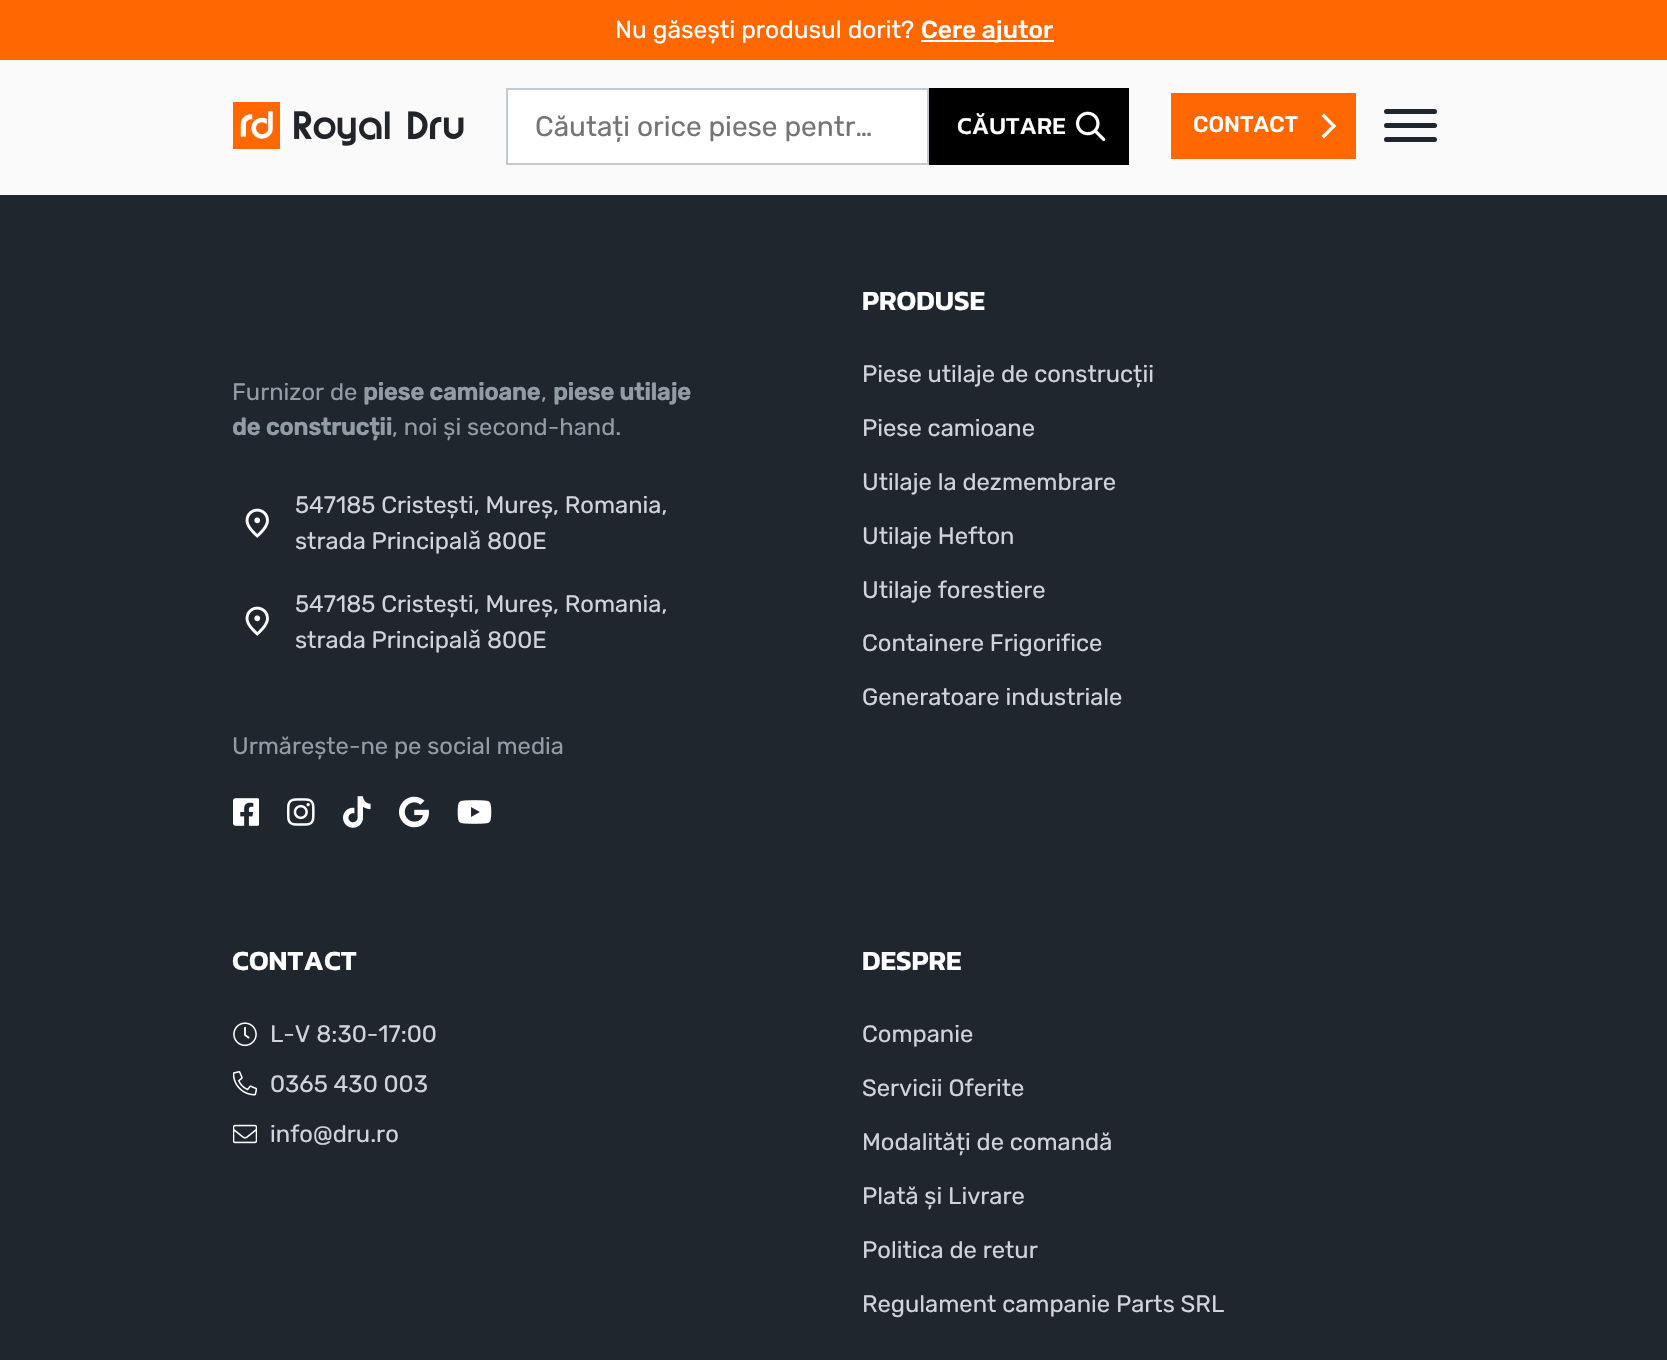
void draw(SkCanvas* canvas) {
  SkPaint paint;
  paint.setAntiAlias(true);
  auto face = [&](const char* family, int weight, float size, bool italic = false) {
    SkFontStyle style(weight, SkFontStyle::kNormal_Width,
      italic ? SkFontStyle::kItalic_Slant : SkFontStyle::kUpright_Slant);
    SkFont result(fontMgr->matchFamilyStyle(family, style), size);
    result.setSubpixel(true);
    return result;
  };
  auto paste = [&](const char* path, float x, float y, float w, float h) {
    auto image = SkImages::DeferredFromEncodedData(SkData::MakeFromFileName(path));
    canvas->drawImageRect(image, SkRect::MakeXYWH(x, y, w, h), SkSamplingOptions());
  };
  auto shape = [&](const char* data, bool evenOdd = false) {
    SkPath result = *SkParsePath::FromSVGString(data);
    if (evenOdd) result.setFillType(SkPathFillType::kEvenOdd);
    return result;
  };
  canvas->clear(0xff20262d);
  {
    const struct { float x, y, w, h; SkColor color; } items[] = {
      {0, 60, 1667, 133, 0xfffafafa},
      {0, 193, 1667, 2, 0xfffafafb},
      {0, 0, 1667, 60, 0xffff6700},
      {921, 40, 133, 2, 0xffffffff},
    };
    for (auto [x, y, w, h, color] : items) {
      paint.setColor(color);
      canvas->drawRect(SkRect::MakeXYWH(x, y, w, h), paint);
    }
  }
  paste("img/1.png", 233, 102, 231, 47);
  canvas->drawRect(SkRect::MakeXYWH(507, 89, 421, 75), paint);
  paint.setStroke(true);
  paint.setStrokeWidth(2);
  paint.setColor(0xffc2cad1);
  canvas->drawRect(SkRect::MakeXYWH(507, 89, 421, 75), paint);
  paint.setStroke(false);
  paint.setColor(0xff000000);
  canvas->drawRect(SkRect::MakeXYWH(929, 88, 200, 77), paint);
  paste("img/2.png", 1075, 111, 31, 30);
  paint.setColor(0xffff6700);
  canvas->drawRect(SkRect::MakeXYWH(1171, 93, 185, 66), paint);
  paint.setColor(0xffffffff);
  canvas->drawPath(shape("M1321.5 116L1324 113.5L1336 126L1334 128.5Z"), paint);
  canvas->drawPath(shape("M1321.5 136L1334 123.5L1336 126L1324 138.5Z"), paint);
  paint.setColor(0xff20262d);
  canvas->drawRoundRect(SkRect::MakeXYWH(1384, 109, 53, 5), 2.5f, 2.5f, paint);
  canvas->drawRoundRect(SkRect::MakeXYWH(1384, 123, 53, 5), 2.5f, 2.5f, paint);
  canvas->drawRoundRect(SkRect::MakeXYWH(1384, 137, 53, 5), 2.5f, 2.5f, paint);
  paste("img/3.png", 245, 508, 24, 30);
  paste("img/3.png", 245, 606, 24, 30);
  paste("img/4.png", 233, 798, 26, 28);
  paste("img/5.png", 287, 798, 28, 28);
  paste("img/6.png", 343, 796, 28, 32);
  paste("img/7.png", 399, 796, 30, 32);
  paste("img/8.png", 457, 800, 35, 24);
  paste("img/9.png", 233, 1022, 24, 25);
  paste("img/10.png", 233, 1071, 24, 25);
  paste("img/11.png", 233, 1124, 24, 20);
  auto f0 = face("Rubik", 300, 24.5f);
  paint.setColor(0xffffffff);
  canvas->drawString("Nu găsești produsul dorit?", 615, 38, f0, paint);
  auto f1 = face("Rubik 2", 300, 24.5f);
  canvas->drawString("Cere ajutor", 921, 38, f1, paint);
  auto f2 = face("Rubik", 300, 28);
  paint.setColor(0xff757575);
  canvas->drawString("Căutați orice piese pentr…", 535, 136, f2, paint);
  auto f3 = face("Kanit", 500, 24.5f);
  paint.setColor(0xffffffff);
  canvas->drawString("CĂUTARE", 957, 134, f3, paint);
  auto f4 = face("Rubik 2", 300, 22.5f);
  canvas->drawString("CONTACT", 1193, 132, f4, paint);
  auto f5 = face("Rubik", 300, 23.75f);
  paint.setColor(0xff919ca6);
  canvas->drawString("Furnizor de", 232, 400, f5, paint);
  auto f6 = face("Rubik", 700, 23.75f);
  canvas->drawString("piese camioane", 363, 400, f6, paint);
  canvas->drawString(",", 541, 400, f5, paint);
  canvas->drawString("piese utilaje", 553, 400, f6, paint);
  canvas->drawString("de construcții", 232, 435, f6, paint);
  canvas->drawString(", noi și second-hand.", 392, 435, f5, paint);
  paint.setColor(0xffced4da);
  canvas->drawString("547185 Cristești, Mureș, Romania,", 295, 513, f5, paint);
  canvas->drawString("strada Principal", 295, 549, f5, paint);
  auto f7 = face("Noto Sans", 400, 23.75f);
  canvas->drawString("ǎ", 468, 549, f7, paint);
  {
    const struct { const char* s; float x, y; } items[] = {
      {"800E", 487, 549},
      {"547185 Cristești, Mureș, Romania,", 295, 612},
      {"strada Principal", 295, 648},
    };
    for (auto [s, x, y] : items) {
      canvas->drawString(s, x, y, f5, paint);
    }
  }
  canvas->drawString("ǎ", 468, 648, f7, paint);
  canvas->drawString("800E", 487, 648, f5, paint);
  paint.setColor(0xff919ca6);
  canvas->drawString("Urmărește-ne pe social media", 232, 754, f5, paint);
  auto f8 = face("Kanit", 600, 28);
  paint.setColor(0xffffffff);
  canvas->drawString("PRODUSE", 862, 310, f8, paint);
  paint.setColor(0xffced4da);
  {
    const struct { const char* s; float x, y; } items[] = {
      {"Piese utilaje de construcții", 862, 382},
      {"Piese camioane", 862, 436},
      {"Utilaje la dezmembrare", 862, 490},
      {"Utilaje Hefton", 862, 544},
      {"Utilaje forestiere", 862, 598},
      {"Containere Frigorifice", 862, 651},
      {"Generatoare industriale", 862, 705},
    };
    for (auto [s, x, y] : items) {
      canvas->drawString(s, x, y, f5, paint);
    }
  }
  paint.setColor(0xffffffff);
  canvas->drawString("CONTACT", 232, 970, f8, paint);
  paint.setColor(0xffced4da);
  {
    const struct { const char* s; float x, y; } items[] = {
      {"L-V 8:30-17:00", 270, 1042},
      {"0365 430 003", 270, 1092},
      {"info@dru.ro", 270, 1142},
    };
    for (auto [s, x, y] : items) {
      canvas->drawString(s, x, y, f5, paint);
    }
  }
  paint.setColor(0xffffffff);
  canvas->drawString("DESPRE", 862, 970, f8, paint);
  paint.setColor(0xffced4da);
  {
    const struct { const char* s; float x, y; } items[] = {
      {"Companie", 862, 1042},
      {"Servicii Oferite", 862, 1096},
      {"Modalități de comandă", 862, 1150},
      {"Plată și Livrare", 862, 1204},
      {"Politica de retur", 862, 1258},
      {"Regulament campanie Parts SRL", 862, 1312},
    };
    for (auto [s, x, y] : items) {
      canvas->drawString(s, x, y, f5, paint);
    }
  }
}
